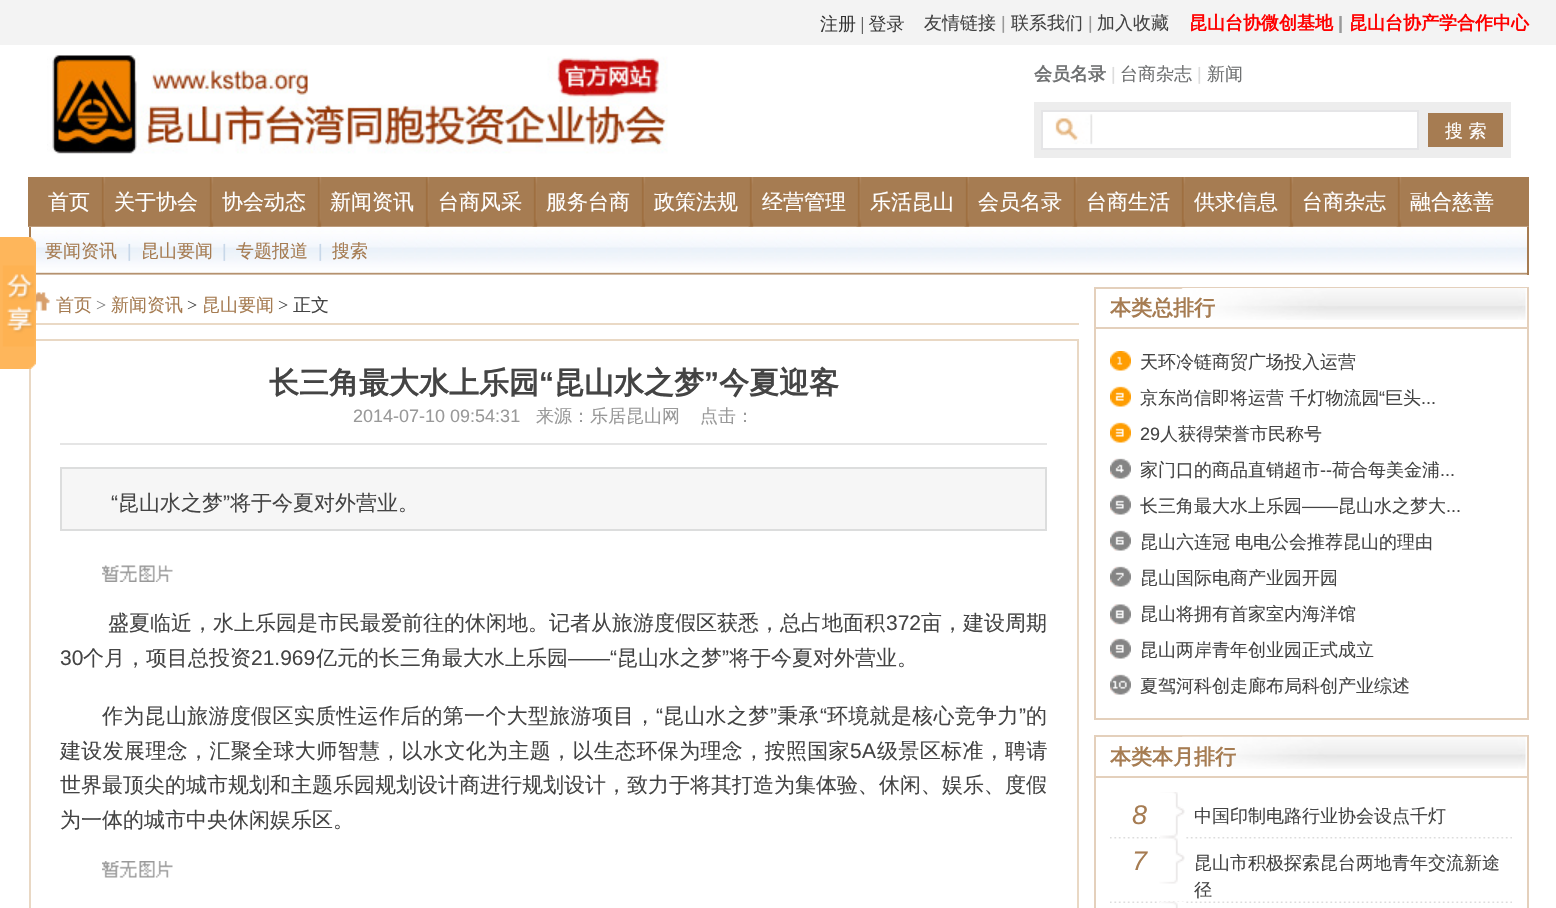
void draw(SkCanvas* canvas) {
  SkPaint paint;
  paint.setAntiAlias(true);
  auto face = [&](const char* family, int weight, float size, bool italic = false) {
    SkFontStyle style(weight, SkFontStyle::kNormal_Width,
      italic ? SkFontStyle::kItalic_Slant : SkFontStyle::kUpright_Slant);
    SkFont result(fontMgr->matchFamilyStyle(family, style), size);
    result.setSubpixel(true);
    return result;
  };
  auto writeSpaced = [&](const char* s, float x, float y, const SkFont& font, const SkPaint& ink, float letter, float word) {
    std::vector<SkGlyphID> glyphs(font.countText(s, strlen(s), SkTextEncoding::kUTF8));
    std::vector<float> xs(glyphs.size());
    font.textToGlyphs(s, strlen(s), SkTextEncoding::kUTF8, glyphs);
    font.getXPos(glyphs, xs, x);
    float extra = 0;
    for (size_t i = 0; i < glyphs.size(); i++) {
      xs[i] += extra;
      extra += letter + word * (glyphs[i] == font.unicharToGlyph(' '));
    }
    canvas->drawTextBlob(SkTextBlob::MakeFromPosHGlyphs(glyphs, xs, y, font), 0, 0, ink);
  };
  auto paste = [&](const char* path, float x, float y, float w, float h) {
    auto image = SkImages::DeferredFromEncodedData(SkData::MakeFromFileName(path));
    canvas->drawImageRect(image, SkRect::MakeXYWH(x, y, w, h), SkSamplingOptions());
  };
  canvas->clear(0xffffffff);
  paint.setColor(0xfff3f3f3);
  canvas->drawRect(SkRect::MakeXYWH(0, 0, 1556, 45), paint);
  paste("img/1.png", 820, 14, 84, 20);
  paste("img/2.png", 47, 55, 621, 99);
  paint.setColor(0xffededed);
  canvas->drawRect(SkRect::MakeXYWH(1034, 102, 477, 56), paint);
  paint.setColor(0xffffffff);
  canvas->drawRect(SkRect::MakeXYWH(1043, 112, 374, 36), paint);
  paste("img/3.png", 1055, 114, 38, 31);
  paint.setStroke(true);
  paint.setStrokeWidth(2);
  paint.setColor(0xffe5e5e7);
  canvas->drawRect(SkRect::MakeXYWH(1042, 111, 376, 38), paint);
  paint.setStroke(false);
  {
    const struct { float x, y, w, h; SkColor color; } items[] = {
      {1428, 113, 75, 34, 0xffa67c52},
      {28, 177, 13, 50, 0xffa67c52},
      {41, 177, 1488, 50, 0xffa67c52},
    };
    for (auto [x, y, w, h, color] : items) {
      paint.setColor(color);
      canvas->drawRect(SkRect::MakeXYWH(x, y, w, h), paint);
    }
  }
  paste("img/6.png", 28, 226, 1501, 49);
  paste("img/4.png", 100, 177, 6, 50);
  paste("img/4.png", 208, 177, 6, 50);
  paste("img/4.png", 316, 177, 6, 50);
  paste("img/5.png", 424, 177, 6, 50);
  paste("img/5.png", 532, 177, 6, 50);
  paste("img/5.png", 640, 177, 6, 50);
  paste("img/5.png", 748, 177, 6, 50);
  paste("img/4.png", 856, 177, 6, 50);
  paste("img/4.png", 964, 177, 6, 50);
  paste("img/4.png", 1072, 177, 6, 50);
  paste("img/5.png", 1180, 177, 6, 50);
  paste("img/5.png", 1288, 177, 6, 50);
  paste("img/5.png", 1396, 177, 6, 50);
  {
    const struct { float x, y, w, h; SkColor color; } items[] = {
      {1527, 227, 2, 48, 0xffa67c52},
      {29, 227, 2, 10, 0xffa67c52},
      {29, 323, 1050, 2, 0xffead9c5},
    };
    for (auto [x, y, w, h, color] : items) {
      paint.setColor(color);
      canvas->drawRect(SkRect::MakeXYWH(x, y, w, h), paint);
    }
  }
  paint.setStroke(true);
  paint.setColor(0xffe9d8c4);
  canvas->drawRect(SkRect::MakeXYWH(30, 340, 1048, 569), paint);
  paste("img/7.png", 0, 237, 36, 132);
  paste("img/8.png", 36, 292, 14, 19);
  paint.setStroke(false);
  paint.setColor(0xffe5e5e5);
  canvas->drawRect(SkRect::MakeXYWH(60, 443, 987, 2), paint);
  paint.setColor(0xfff6f6f6);
  canvas->drawRect(SkRect::MakeXYWH(61, 468, 985, 62), paint);
  paint.setStroke(true);
  paint.setColor(0xffdcdddd);
  canvas->drawRect(SkRect::MakeXYWH(61, 468, 985, 62), paint);
  paste("img/9.png", 102, 565, 71, 17);
  paste("img/10.png", 102, 861, 71, 17);
  paint.setColor(0xffe4d0bc);
  canvas->drawRect(SkRect::MakeXYWH(1095, 288, 433, 431), paint);
  paste("img/11.png", 1181, 288, 346, 32);
  paint.setStroke(false);
  canvas->drawRect(SkRect::MakeXYWH(1095, 327, 432, 2), paint);
  paste("img/12.png", 1110, 351, 21, 344);
  paint.setStroke(true);
  canvas->drawRect(SkRect::MakeXYWH(1095, 736, 433, 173), paint);
  paste("img/13.png", 1182, 736, 345, 33);
  paint.setStroke(false);
  canvas->drawRect(SkRect::MakeXYWH(1095, 776, 432, 2), paint);
  paste("img/14.png", 1160, 792, 25, 45);
  paste("img/15.png", 1110, 837, 402, 2);
  paste("img/16.png", 1159, 837, 26, 47);
  paste("img/17.png", 1110, 901, 402, 2);
  paste("img/18.png", 1159, 901, 25, 7);
  auto f0 = face("WenQuanYi Zen Hei", 500, 18);
  paint.setColor(0xff444444);
  canvas->drawString("友情链接", 924, 29, f0, paint);
  auto f1 = face("Liberation Sans", 400, 18);
  paint.setColor(0xff999999);
  canvas->drawString("|", 1001, 29, f1, paint);
  paint.setColor(0xff444444);
  canvas->drawString("联系我们", 1011, 29, f0, paint);
  paint.setColor(0xff999999);
  canvas->drawString("|", 1088, 29, f1, paint);
  paint.setColor(0xff444444);
  canvas->drawString("加入收藏", 1097, 29, f0, paint);
  auto f2 = face("WenQuanYi Zen Hei", 700, 18);
  paint.setColor(0xffff0000);
  canvas->drawString("昆山台协微创基地", 1189, 29, f2, paint);
  auto f3 = face("Liberation Sans", 700, 18);
  paint.setColor(0xff999999);
  canvas->drawString("|", 1338, 29, f3, paint);
  paint.setColor(0xffff0000);
  canvas->drawString("昆山台协产学合作中心", 1349, 29, f2, paint);
  paint.setColor(0xff6f7172);
  canvas->drawString("会员名录", 1034, 80, f2, paint);
  paint.setColor(0xffdddddd);
  canvas->drawString("|", 1111, 80, f1, paint);
  paint.setColor(0xff6f7172);
  canvas->drawString("台商杂志", 1120, 80, f0, paint);
  paint.setColor(0xffdddddd);
  canvas->drawString("|", 1197, 80, f1, paint);
  paint.setColor(0xff6f7172);
  canvas->drawString("新闻", 1207, 80, f0, paint);
  paint.setColor(0xffffffff);
  canvas->drawString("搜 索", 1445, 137, f0, paint);
  auto f4 = face("WenQuanYi Zen Hei", 500, 21);
  {
    const struct { const char* s; float x, y; } items[] = {
      {"首页", 48, 209},
      {"关于协会", 114, 209},
      {"协会动态", 222, 209},
      {"新闻资讯", 330, 209},
      {"台商风采", 438, 209},
      {"服务台商", 546, 209},
      {"政策法规", 654, 209},
      {"经营管理", 762, 209},
      {"乐活昆山", 870, 209},
      {"会员名录", 978, 209},
      {"台商生活", 1086, 209},
      {"供求信息", 1194, 209},
      {"台商杂志", 1302, 209},
      {"融合慈善", 1410, 209},
    };
    for (auto [s, x, y] : items) {
      canvas->drawString(s, x, y, f4, paint);
    }
  }
  paint.setColor(0xffa67c52);
  canvas->drawString("要闻资讯", 45, 257, f0, paint);
  paint.setColor(0xffc8d8e9);
  canvas->drawString("|", 127, 257, f1, paint);
  paint.setColor(0xffa67c52);
  canvas->drawString("昆山要闻", 141, 257, f0, paint);
  paint.setColor(0xffc8d8e9);
  canvas->drawString("|", 222, 257, f1, paint);
  paint.setColor(0xffa67c52);
  canvas->drawString("专题报道", 236, 257, f0, paint);
  paint.setColor(0xffc8d8e9);
  canvas->drawString("|", 318, 257, f1, paint);
  paint.setColor(0xffa67c52);
  canvas->drawString("搜索", 332, 257, f0, paint);
  canvas->drawString("首页", 56, 311, f0, paint);
  auto f5 = face("Liberation Serif", 400, 18);
  paint.setColor(0xff7e7e7e);
  canvas->drawString(">", 96, 311, f5, paint);
  paint.setColor(0xffa67c52);
  canvas->drawString("新闻资讯", 111, 311, f0, paint);
  paint.setColor(0xff444444);
  canvas->drawString(">", 187, 311, f5, paint);
  paint.setColor(0xffa67c52);
  canvas->drawString("昆山要闻", 202, 311, f0, paint);
  paint.setColor(0xff444444);
  canvas->drawString(">", 278, 311, f5, paint);
  canvas->drawString("正文", 293, 311, f0, paint);
  auto f6 = face("WenQuanYi Zen Hei", 700, 30);
  canvas->drawString("长三角最大水上乐园", 269, 393, f6, paint);
  auto f7 = face("Liberation Sans", 700, 30);
  canvas->drawString("“", 539, 393, f7, paint);
  canvas->drawString("昆山水之梦", 554, 393, f6, paint);
  canvas->drawString("”", 704, 393, f7, paint);
  canvas->drawString("今夏迎客", 719, 393, f6, paint);
  paint.setColor(0xff999999);
  canvas->drawString("2014-07-10 09:54:31", 353, 422, f1, paint);
  canvas->drawString("来源：乐居昆山网", 536, 422, f0, paint);
  canvas->drawString("点击：", 700, 422, f0, paint);
  auto f8 = face("Liberation Sans", 400, 21);
  paint.setColor(0xff444444);
  canvas->drawString("“", 111, 510, f8, paint);
  canvas->drawString("昆山水之梦", 118, 510, f4, paint);
  canvas->drawString("”", 223, 510, f8, paint);
  canvas->drawString("将于今夏对外营业。", 230, 510, f4, paint);
  canvas->drawString("盛夏临近，水上乐园是市民最爱前往的休闲地。记者从旅游度假区获悉，总占地面积", 108, 630, f4, paint);
  canvas->drawString("372", 886, 630, f8, paint);
  canvas->drawString("亩，建设周期", 921, 630, f4, paint);
  canvas->drawString("30", 60, 665, f8, paint);
  canvas->drawString("个月，项目总投资", 83, 665, f4, paint);
  canvas->drawString("21.969", 251, 665, f8, paint);
  canvas->drawString("亿元的长三角最大水上乐园", 316, 665, f4, paint);
  canvas->drawString("——“", 568, 665, f8, paint);
  canvas->drawString("昆山水之梦", 617, 665, f4, paint);
  canvas->drawString("”", 722, 665, f8, paint);
  canvas->drawString("将于今夏对外营业。", 729, 665, f4, paint);
  writeSpaced("作为昆山旅游度假区实质性运作后的第一个大型旅游项目，", 102, 723, f4, paint, 0.3f, 0);
  writeSpaced("“", 656, 723, f8, paint, 0.3f, 0);
  writeSpaced("昆山水之梦", 663, 723, f4, paint, 0.3f, 0);
  writeSpaced("”", 770, 723, f8, paint, 0.3f, 0);
  writeSpaced("秉承", 777, 723, f4, paint, 0.3f, 0);
  writeSpaced("“", 820, 723, f8, paint, 0.3f, 0);
  writeSpaced("环境就是核心竞争力", 827, 723, f4, paint, 0.3f, 0);
  writeSpaced("”", 1019, 723, f8, paint, 0.3f, 0);
  writeSpaced("的", 1026, 723, f4, paint, 0.3f, 0);
  writeSpaced("建设发展理念，汇聚全球大师智慧，以水文化为主题，以生态环保为理念，按照国家", 60, 758, f4, paint, 0.35f, 0);
  writeSpaced("5A", 850, 758, f8, paint, 0.35f, 0);
  writeSpaced("级景区标准，聘请", 877, 758, f4, paint, 0.35f, 0);
  canvas->drawString("世界最顶尖的城市规划和主题乐园规划设计商进行规划设计，致力于将其打造为集体验、休闲、娱乐、度假", 60, 792, f4, paint);
  canvas->drawString("为一体的城市中央休闲娱乐区。", 60, 827, f4, paint);
  auto f9 = face("WenQuanYi Zen Hei", 700, 21);
  paint.setColor(0xffa67c52);
  canvas->drawString("本类总排行", 1110, 315, f9, paint);
  paint.setColor(0xff444444);
  canvas->drawString("天环冷链商贸广场投入运营", 1140, 368, f0, paint);
  canvas->drawString("京东尚信即将运营 千灯物流园", 1140, 404, f0, paint);
  canvas->drawString("“", 1379, 404, f1, paint);
  canvas->drawString("巨头", 1385, 404, f0, paint);
  canvas->drawString("...", 1421, 404, f1, paint);
  canvas->drawString("29", 1140, 440, f1, paint);
  canvas->drawString("人获得荣誉市民称号", 1160, 440, f0, paint);
  canvas->drawString("家门口的商品直销超市", 1140, 476, f0, paint);
  canvas->drawString("--", 1320, 476, f1, paint);
  canvas->drawString("荷合每美金浦", 1332, 476, f0, paint);
  canvas->drawString("...", 1440, 476, f1, paint);
  canvas->drawString("长三角最大水上乐园", 1140, 512, f0, paint);
  canvas->drawString("——", 1302, 512, f1, paint);
  canvas->drawString("昆山水之梦大", 1338, 512, f0, paint);
  canvas->drawString("...", 1446, 512, f1, paint);
  {
    const struct { const char* s; float x, y; } items[] = {
      {"昆山六连冠", 1140, 548},
      {"电电公会推荐昆山的理由", 1235, 548},
      {"昆山国际电商产业园开园", 1140, 584},
      {"昆山将拥有首家室内海洋馆", 1140, 620},
      {"昆山两岸青年创业园正式成立", 1140, 656},
      {"夏驾河科创走廊布局科创产业综述", 1140, 692},
    };
    for (auto [s, x, y] : items) {
      canvas->drawString(s, x, y, f0, paint);
    }
  }
  paint.setColor(0xffa67c52);
  canvas->drawString("本类本月排行", 1110, 764, f9, paint);
  auto f10 = face("Liberation Sans", 400, 27, true);
  canvas->drawString("8", 1132, 824, f10, paint);
  paint.setColor(0xff444444);
  canvas->drawString("中国印制电路行业协会设点千灯", 1194, 822, f0, paint);
  paint.setColor(0xffa67c52);
  canvas->drawString("7", 1132, 870, f10, paint);
  paint.setColor(0xff444444);
  canvas->drawString("昆山市积极探索昆台两地青年交流新途", 1194, 869, f0, paint);
  canvas->drawString("径", 1194, 896, f0, paint);
}
